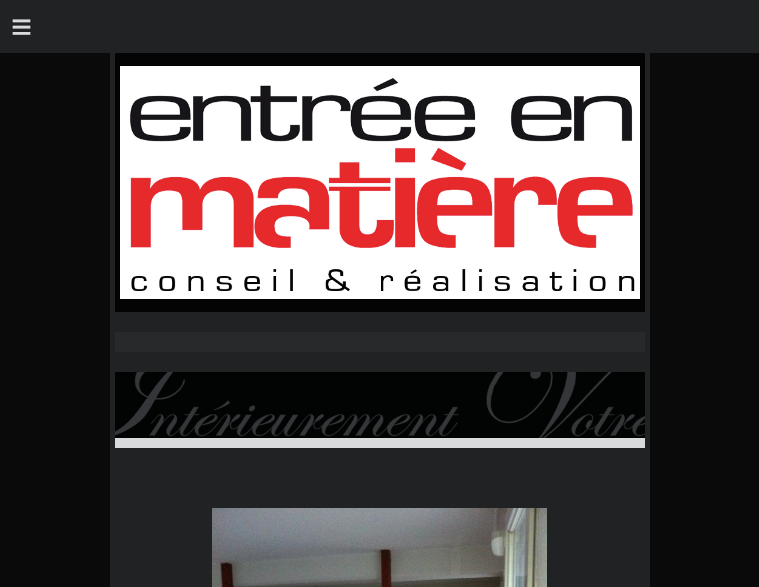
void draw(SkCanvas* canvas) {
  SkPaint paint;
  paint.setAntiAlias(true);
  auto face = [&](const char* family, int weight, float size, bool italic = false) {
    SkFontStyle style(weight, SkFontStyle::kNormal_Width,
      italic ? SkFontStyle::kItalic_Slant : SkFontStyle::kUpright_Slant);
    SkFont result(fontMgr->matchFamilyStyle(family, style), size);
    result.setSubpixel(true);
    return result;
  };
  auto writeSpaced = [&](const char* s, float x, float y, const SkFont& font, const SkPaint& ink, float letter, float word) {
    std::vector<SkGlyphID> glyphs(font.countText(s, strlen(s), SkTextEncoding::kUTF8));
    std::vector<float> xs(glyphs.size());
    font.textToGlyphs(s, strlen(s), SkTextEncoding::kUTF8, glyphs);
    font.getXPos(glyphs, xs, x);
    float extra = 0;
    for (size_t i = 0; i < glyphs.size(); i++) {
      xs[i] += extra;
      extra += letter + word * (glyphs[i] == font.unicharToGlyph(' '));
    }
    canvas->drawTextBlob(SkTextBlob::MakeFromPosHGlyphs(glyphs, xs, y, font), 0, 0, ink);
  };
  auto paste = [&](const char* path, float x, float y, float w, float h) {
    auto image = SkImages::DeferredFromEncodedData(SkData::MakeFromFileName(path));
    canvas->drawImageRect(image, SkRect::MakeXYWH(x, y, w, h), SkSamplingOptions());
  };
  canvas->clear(0xff0a0a0b);
  {
    const struct { float x, y, w, h; SkColor color; } items[] = {
      {0, 0, 759, 53, 0xff212224},
      {110, 53, 540, 534, 0xff212224},
      {115, 53, 530, 259, 0xff050404},
    };
    for (auto [x, y, w, h, color] : items) {
      paint.setColor(color);
      canvas->drawRect(SkRect::MakeXYWH(x, y, w, h), paint);
    }
  }
  paste("img/1.png", 120, 66, 520, 233);
  paint.setColor(0xff28292b);
  canvas->drawRect(SkRect::MakeXYWH(115, 332, 530, 20), paint);
  paint.setColor(0xffd9dadb);
  canvas->drawRect(SkRect::MakeXYWH(115, 438, 530, 10), paint);
  paste("img/2.png", 115, 372, 530, 66);
  paste("img/3.png", 212, 508, 335, 79);
  auto f0 = face("Liberation Sans", 400, 36);
  writeSpaced("≡", 11, 39, f0, paint, 10, 0);
}
